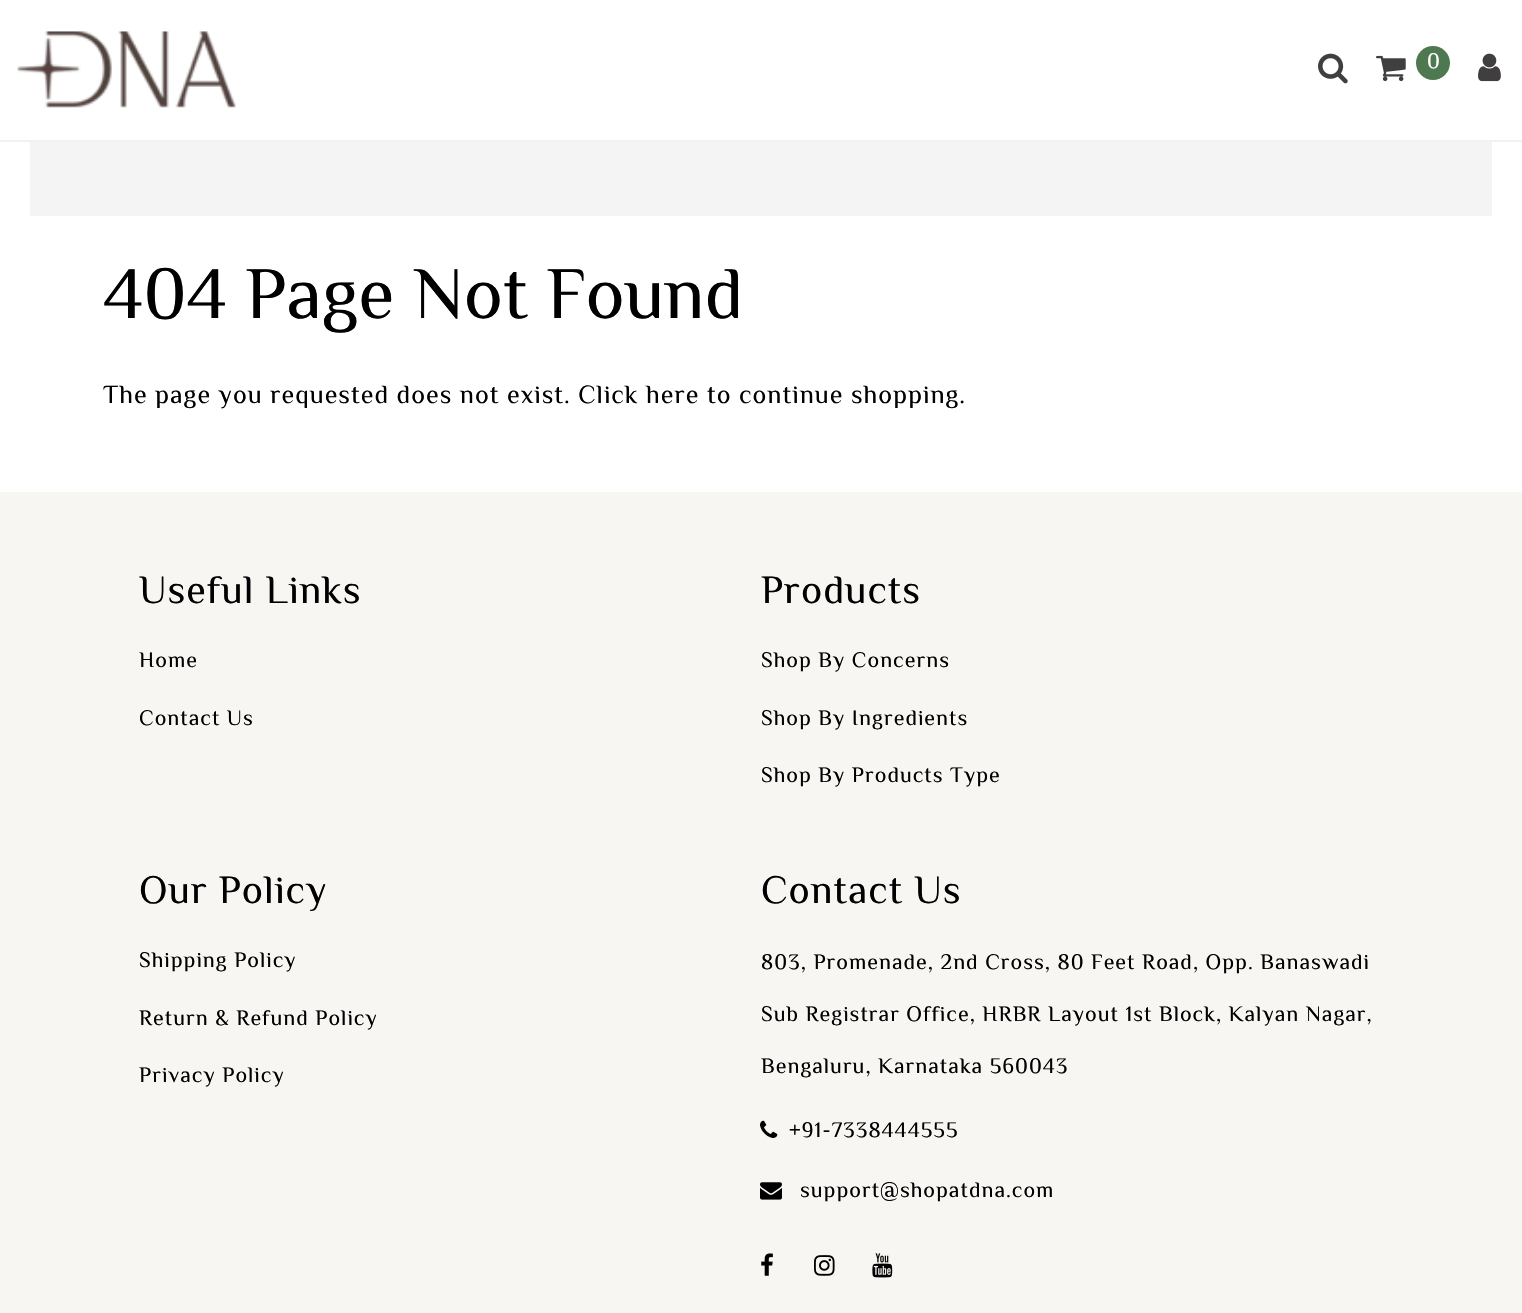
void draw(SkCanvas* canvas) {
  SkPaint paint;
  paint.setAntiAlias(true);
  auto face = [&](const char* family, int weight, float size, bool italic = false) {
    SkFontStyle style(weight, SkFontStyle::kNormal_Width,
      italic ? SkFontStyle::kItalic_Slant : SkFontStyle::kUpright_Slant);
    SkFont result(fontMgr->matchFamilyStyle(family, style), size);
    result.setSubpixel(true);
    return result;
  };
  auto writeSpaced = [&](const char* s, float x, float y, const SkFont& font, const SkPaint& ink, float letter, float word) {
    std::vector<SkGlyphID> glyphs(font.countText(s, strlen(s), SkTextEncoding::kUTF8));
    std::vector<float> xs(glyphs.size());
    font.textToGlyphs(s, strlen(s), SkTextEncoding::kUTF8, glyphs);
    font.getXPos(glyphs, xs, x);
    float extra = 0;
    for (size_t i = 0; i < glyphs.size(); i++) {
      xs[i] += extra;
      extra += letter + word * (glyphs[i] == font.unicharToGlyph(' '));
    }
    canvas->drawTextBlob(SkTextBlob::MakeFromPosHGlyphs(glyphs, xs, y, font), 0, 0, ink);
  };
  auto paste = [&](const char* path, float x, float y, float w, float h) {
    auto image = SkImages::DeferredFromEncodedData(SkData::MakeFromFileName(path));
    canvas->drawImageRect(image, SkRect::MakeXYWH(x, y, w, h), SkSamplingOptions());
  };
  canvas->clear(0xffffffff);
  paint.setColor(0xfff1f1f1);
  canvas->drawRect(SkRect::MakeXYWH(0, 140, 1522, 2), paint);
  paste("img/1.png", 17, 31, 219, 77);
  paste("img/2.png", 1318, 53, 30, 31);
  paste("img/3.png", 1376, 55, 30, 27);
  paint.setColor(0xff4d7850);
  canvas->drawCircle(1433, 63, 17, paint);
  paste("img/4.png", 1478, 53, 23, 29);
  paint.setColor(0xfff4f4f4);
  canvas->drawRect(SkRect::MakeXYWH(30, 142, 1462, 74), paint);
  paint.setColor(0xfff8f6f3);
  canvas->drawRect(SkRect::MakeXYWH(0, 492, 1522, 821), paint);
  paste("img/5.png", 760, 1120, 18, 18);
  paste("img/6.png", 760, 1182, 22, 18);
  paste("img/7.png", 761, 1253, 12, 23);
  paste("img/8.png", 814, 1255, 21, 21);
  paste("img/9.png", 872, 1253, 21, 25);
  auto f0 = face("El Messiri", 400, 22);
  paint.setColor(0xffffffff);
  writeSpaced("0", 1427, 68, f0, paint, 1, 0);
  auto f1 = face("El Messiri", 400, 74);
  paint.setColor(0xff000000);
  canvas->drawString("404 Page Not Found", 103, 318, f1, paint);
  auto f2 = face("El Messiri", 400, 26);
  writeSpaced("The page you requested does not exist. Click here to continue shopping.", 103, 403, f2, paint, 1, 0);
  auto f3 = face("El Messiri", 400, 40);
  writeSpaced("Useful Links", 139, 603, f3, paint, 1, 0);
  writeSpaced("Home", 139, 667, f0, paint, 1, 0);
  writeSpaced("Contact Us", 139, 725, f0, paint, 1, 0);
  writeSpaced("Products", 761, 603, f3, paint, 1, 0);
  {
    const struct { const char* s; float x, y; } items[] = {
      {"Shop By Concerns", 761, 667},
      {"Shop By Ingredients", 761, 725},
      {"Shop By Products Type", 761, 782},
    };
    for (auto [s, x, y] : items) {
      writeSpaced(s, x, y, f0, paint, 1, 0);
    }
  }
  writeSpaced("Our Policy", 139, 903, f3, paint, 1, 0);
  {
    const struct { const char* s; float x, y; } items[] = {
      {"Shipping Policy", 139, 967},
      {"Return & Refund Policy", 139, 1025},
      {"Privacy Policy", 139, 1082},
    };
    for (auto [s, x, y] : items) {
      writeSpaced(s, x, y, f0, paint, 1, 0);
    }
  }
  writeSpaced("Contact Us", 761, 903, f3, paint, 1, 0);
  {
    const struct { const char* s; float x, y; } items[] = {
      {"803, Promenade, 2nd Cross, 80 Feet Road, Opp. Banaswadi", 761, 969},
      {"Sub Registrar Office, HRBR Layout 1st Block, Kalyan Nagar,", 761, 1021},
      {"Bengaluru, Karnataka 560043", 761, 1073},
      {"+91-7338444555", 789, 1137},
      {"support@shopatdna.com", 800, 1197},
    };
    for (auto [s, x, y] : items) {
      writeSpaced(s, x, y, f0, paint, 1, 0);
    }
  }
}
